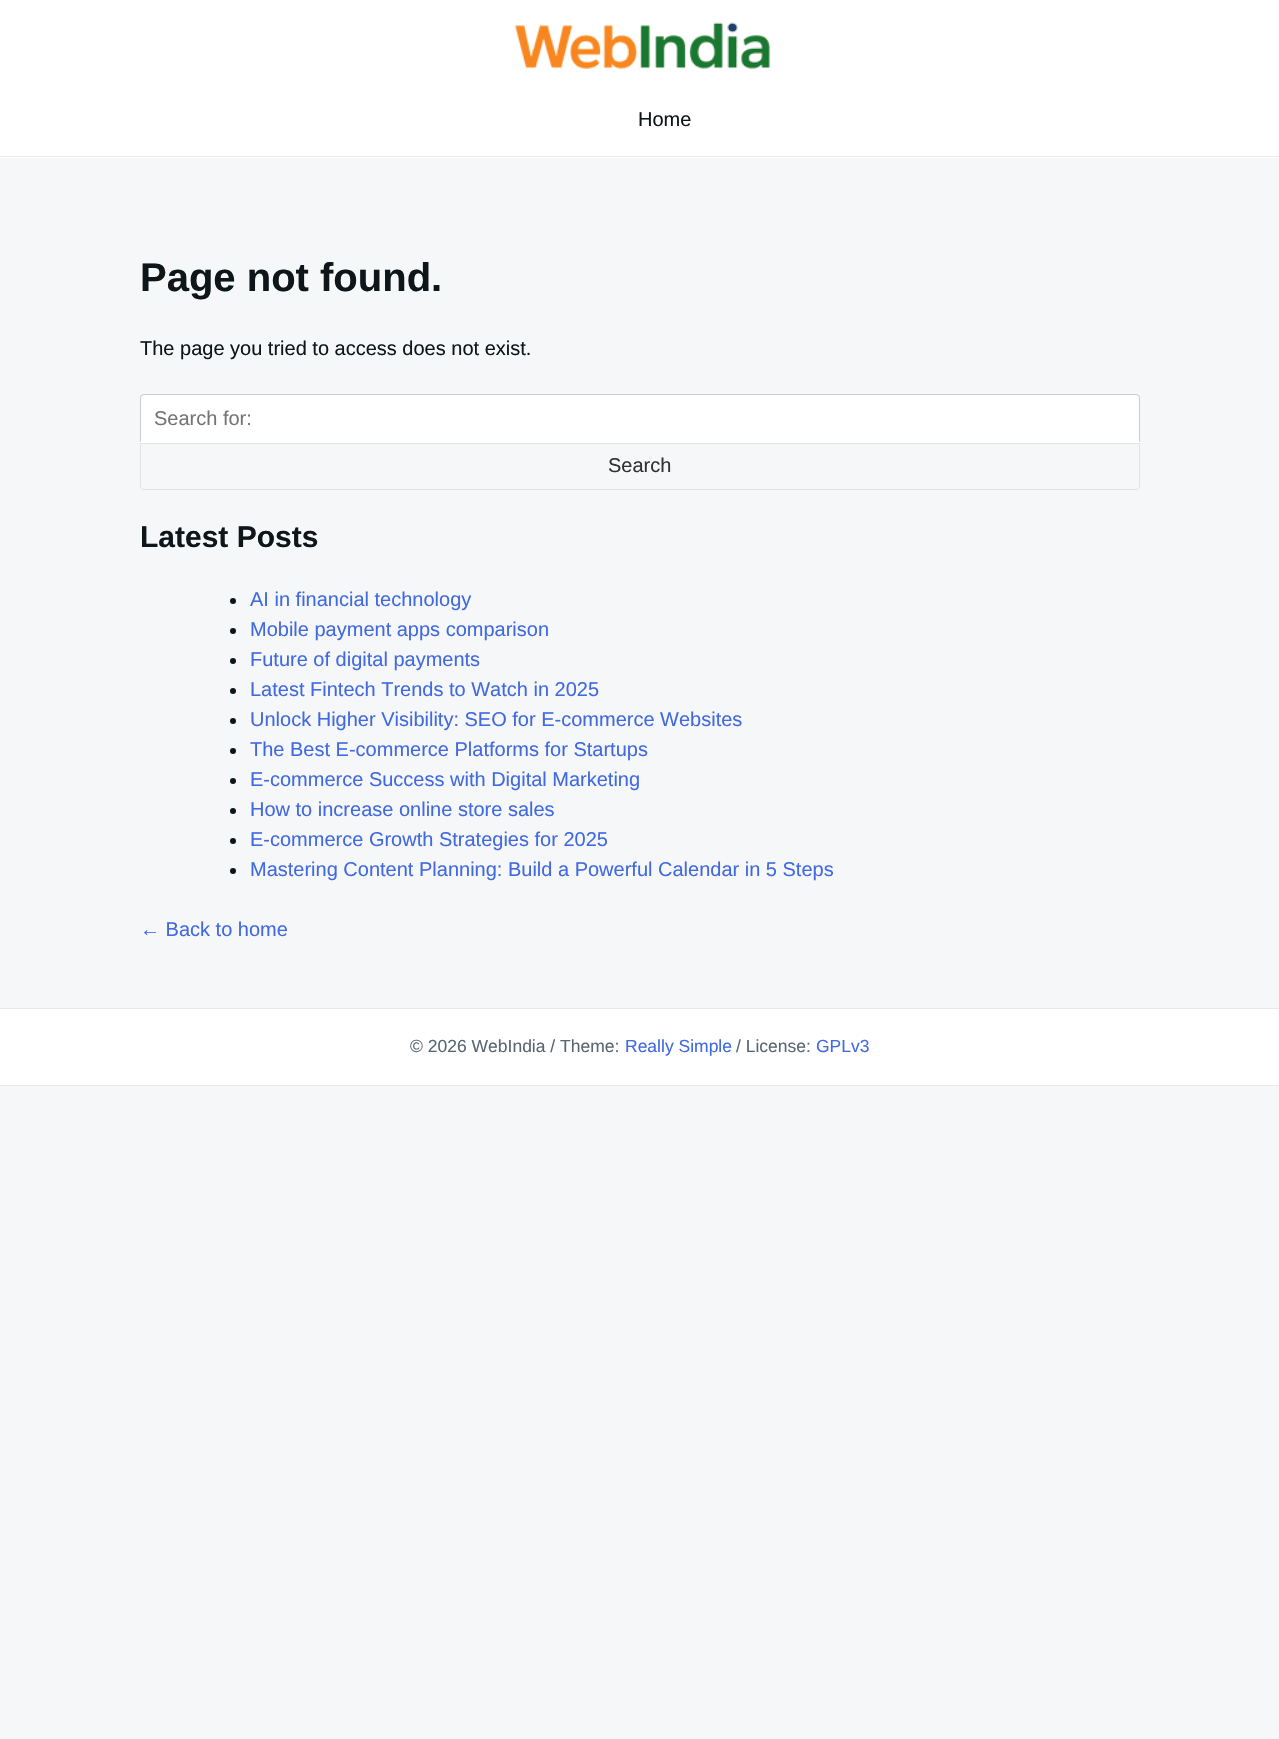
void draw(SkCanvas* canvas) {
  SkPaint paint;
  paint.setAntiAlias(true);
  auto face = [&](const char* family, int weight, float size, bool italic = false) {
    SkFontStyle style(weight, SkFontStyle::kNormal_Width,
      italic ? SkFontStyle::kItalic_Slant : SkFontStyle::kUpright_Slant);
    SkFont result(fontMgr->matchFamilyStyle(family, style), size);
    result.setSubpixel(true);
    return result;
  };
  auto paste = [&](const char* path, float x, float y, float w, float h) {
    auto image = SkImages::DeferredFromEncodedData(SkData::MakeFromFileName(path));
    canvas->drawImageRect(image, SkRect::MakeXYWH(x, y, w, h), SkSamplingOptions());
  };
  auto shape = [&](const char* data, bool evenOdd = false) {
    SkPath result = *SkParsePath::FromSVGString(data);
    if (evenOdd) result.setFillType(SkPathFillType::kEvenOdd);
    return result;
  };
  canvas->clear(0xfff5f7f8);
  paint.setColor(0xffffffff);
  canvas->drawRect(SkRect::MakeXYWH(0, 0, 1279, 158), paint);
  paint.setColor(0xffe9ebeb);
  canvas->drawRect(SkRect::MakeXYWH(0, 156, 1279, 1), paint);
  paste("img/1.png", 514, 22, 257, 47);
  paint.setColor(0xffffffff);
  canvas->drawPath(shape("M144 394H1136C1138 394 1140 396 1140 398V443H140V398C140 396 142 394 144 394Z"), paint);
  paint.setColor(0xffcccccc);
  canvas->drawPath(shape("M144 394H1136C1138 394 1140 395 1140 398V442H140V398C140 395 142 394 144 394ZM144 395H1136C1138 395 1139 396 1139 398V442H141V398C141 396 142 395 144 395Z", true), paint);
  paint.setStroke(true);
  paint.setStrokeWidth(1);
  paint.setColor(0xffe0e3e5);
  canvas->drawPath(shape("M140.5 443.5H1139.5V486C1139.5 488 1138 489.5 1136 489.5H144C142 489.5 140.5 488 140.5 486Z"), paint);
  paint.setStroke(false);
  paint.setColor(0xff0f161a);
  canvas->drawCircle(233, 601, 3, paint);
  canvas->drawCircle(233, 631, 3, paint);
  canvas->drawCircle(233, 661, 3, paint);
  canvas->drawCircle(233, 691, 3, paint);
  canvas->drawCircle(233, 721, 3, paint);
  canvas->drawCircle(233, 751, 3, paint);
  canvas->drawCircle(233, 781, 3, paint);
  canvas->drawCircle(233, 811, 3, paint);
  canvas->drawCircle(233, 841, 3, paint);
  canvas->drawCircle(233, 871, 3, paint);
  {
    const struct { float x, y, w, h; SkColor color; } items[] = {
      {0, 1009, 1279, 76, 0xffffffff},
      {0, 1008, 1279, 1, 0xffe9ebeb},
      {0, 1085, 1279, 1, 0xffe9ebeb},
    };
    for (auto [x, y, w, h, color] : items) {
      paint.setColor(color);
      canvas->drawRect(SkRect::MakeXYWH(x, y, w, h), paint);
    }
  }
  auto f0 = face("Liberation Sans", 400, 20);
  paint.setColor(0xff0f161a);
  canvas->drawString("Home", 638, 126, f0, paint);
  auto f1 = face("Liberation Sans", 700, 40);
  canvas->drawString("Page not found.", 140, 291, f1, paint);
  canvas->drawString("The page you tried to access does not exist.", 140, 355, f0, paint);
  paint.setColor(0xff757575);
  canvas->drawString("Search for:", 154, 425, f0, paint);
  paint.setColor(0xff313132);
  canvas->drawString("Search", 608, 472, f0, paint);
  auto f2 = face("Liberation Sans", 700, 30);
  paint.setColor(0xff0f161a);
  canvas->drawString("Latest Posts", 140, 547, f2, paint);
  paint.setColor(0xff4169e1);
  {
    const struct { const char* s; float x, y; } items[] = {
      {"AI in financial technology", 250, 606},
      {"Mobile payment apps comparison", 250, 636},
      {"Future of digital payments", 250, 666},
      {"Latest Fintech Trends to Watch in 2025", 250, 696},
      {"Unlock Higher Visibility: SEO for E-commerce Websites", 250, 726},
      {"The Best E-commerce Platforms for Startups", 250, 756},
      {"E-commerce Success with Digital Marketing", 250, 786},
      {"How to increase online store sales", 250, 816},
      {"E-commerce Growth Strategies for 2025", 250, 846},
      {"Mastering Content Planning: Build a Powerful Calendar in 5 Steps", 250, 876},
      {"← Back to home", 140, 936},
    };
    for (auto [s, x, y] : items) {
      canvas->drawString(s, x, y, f0, paint);
    }
  }
  auto f3 = face("Liberation Sans", 400, 17.5f);
  paint.setColor(0xff586674);
  canvas->drawString("© 2026 WebIndia / Theme:", 410, 1052, f3, paint);
  paint.setColor(0xff4169e1);
  canvas->drawString("Really Simple", 625, 1052, f3, paint);
  paint.setColor(0xff586674);
  canvas->drawString("/ License:", 736, 1052, f3, paint);
  paint.setColor(0xff4169e1);
  canvas->drawString("GPLv3", 816, 1052, f3, paint);
}
